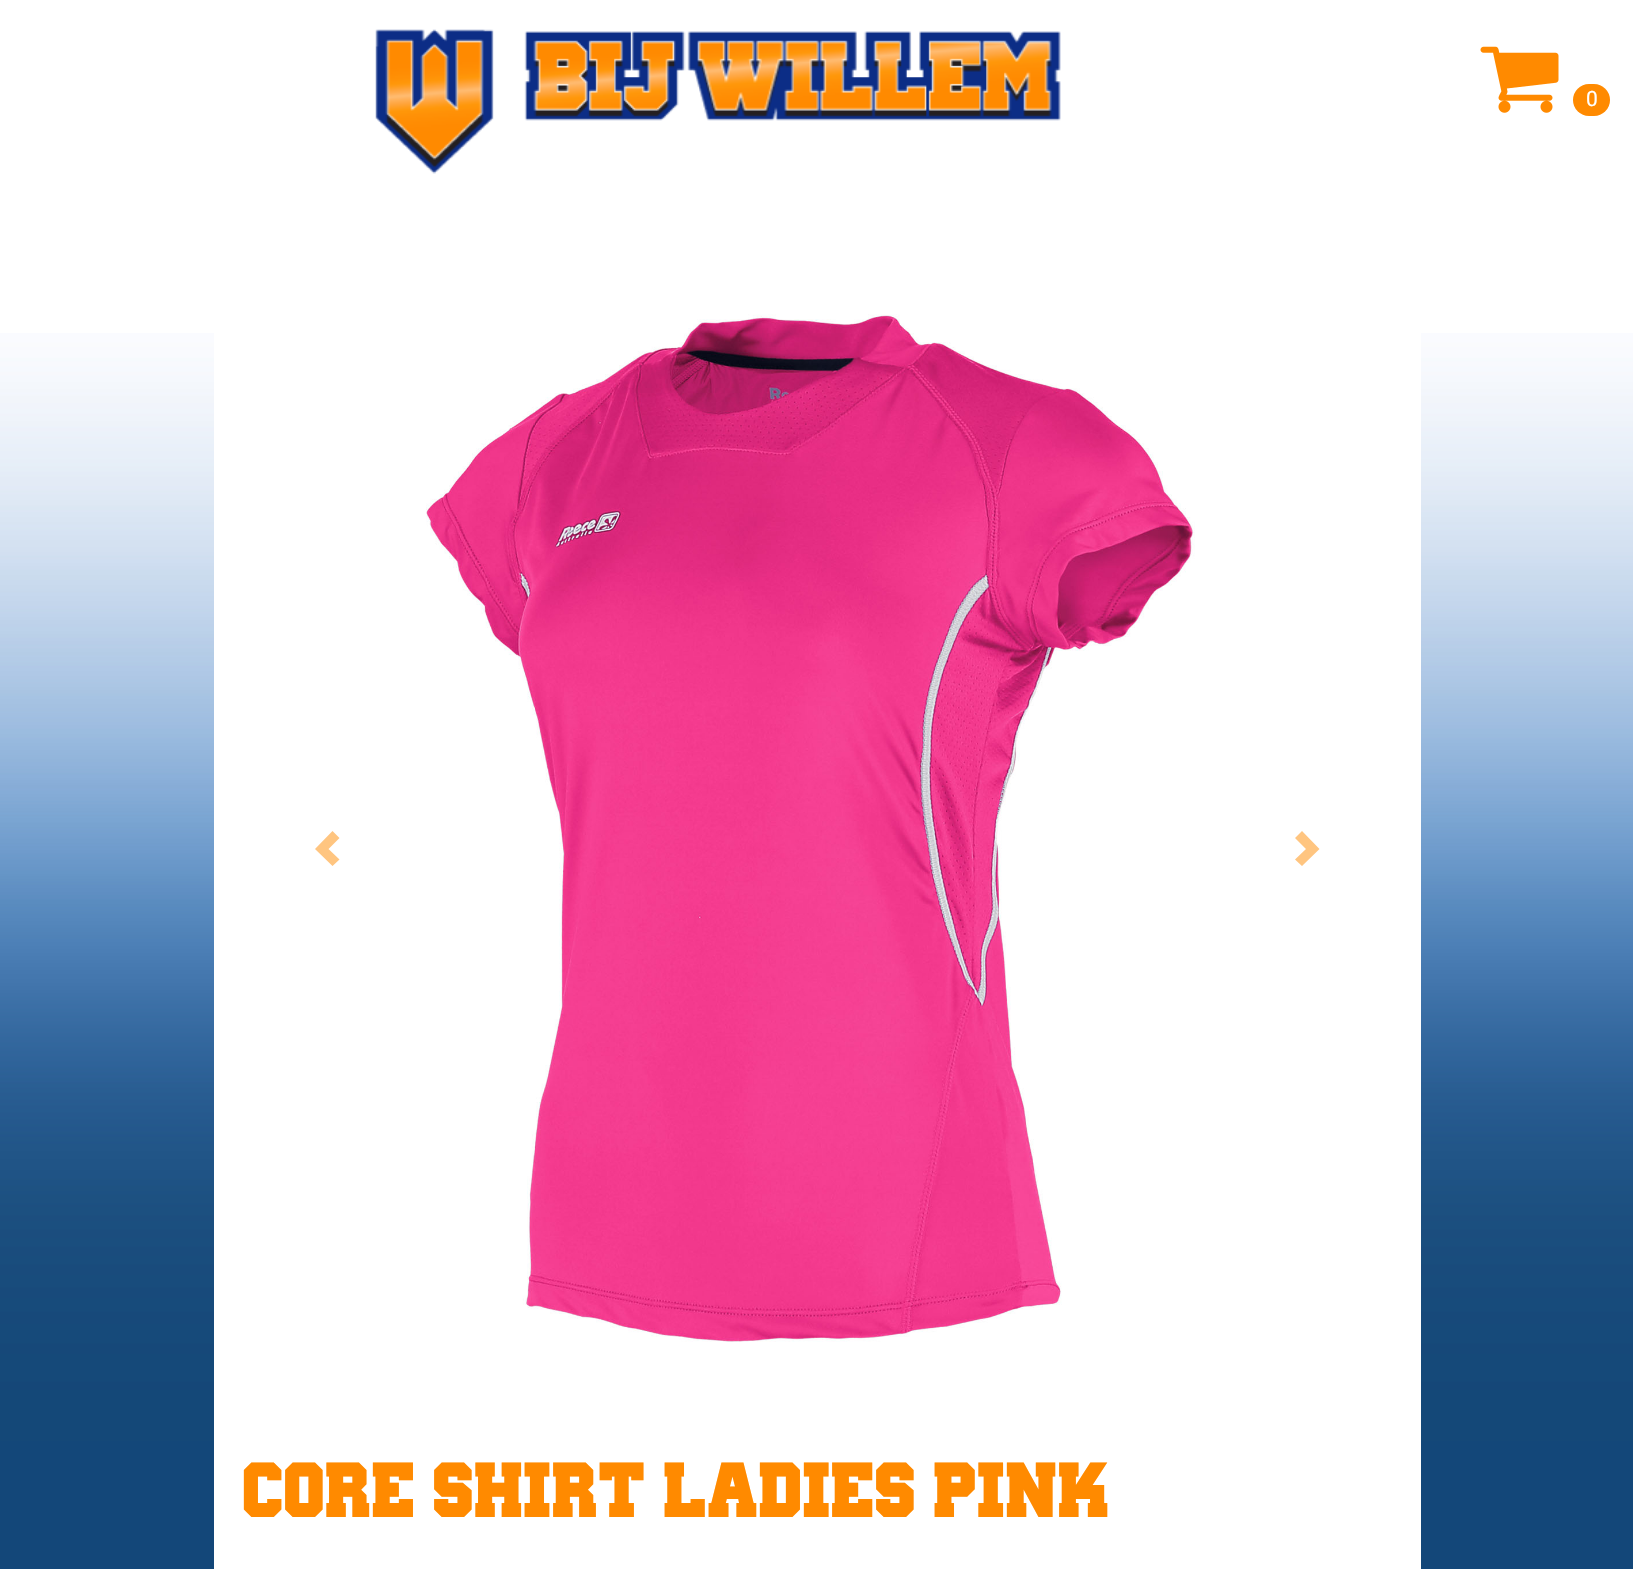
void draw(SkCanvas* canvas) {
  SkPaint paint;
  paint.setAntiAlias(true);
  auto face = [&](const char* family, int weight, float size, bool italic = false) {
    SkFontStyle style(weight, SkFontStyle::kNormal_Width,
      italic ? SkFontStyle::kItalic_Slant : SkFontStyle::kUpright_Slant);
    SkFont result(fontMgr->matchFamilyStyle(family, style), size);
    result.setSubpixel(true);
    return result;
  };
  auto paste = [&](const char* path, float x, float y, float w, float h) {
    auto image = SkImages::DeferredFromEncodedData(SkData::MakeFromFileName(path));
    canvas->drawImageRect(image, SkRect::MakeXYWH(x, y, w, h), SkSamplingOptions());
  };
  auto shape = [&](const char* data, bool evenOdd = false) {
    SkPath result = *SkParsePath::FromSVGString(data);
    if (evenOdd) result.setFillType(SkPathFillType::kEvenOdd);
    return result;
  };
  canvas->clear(0xffffffff);
  paste("img/1.png", 0, 333, 1633, 1236);
  paste("img/2.png", 375, 29, 686, 145);
  paste("img/3.png", 1480, 46, 79, 67);
  paint.setColor(0xffff8a00);
  canvas->drawRoundRect(SkRect::MakeXYWH(1573, 84, 37, 32), 16, 16, paint);
  paint.setColor(0xffffffff);
  canvas->drawRoundRect(SkRect::MakeXYWH(214, 245, 1207, 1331), 7, 7, paint);
  paint.setColor(0xffffc580);
  canvas->drawPath(shape("M332.5 831L315 849L332.5 866L339.5 859.5L328.5 849L339.5 838Z"), paint);
  paste("img/4.png", 426, 314, 769, 1028);
  canvas->drawPath(shape("M1302 831L1295 838L1306 849L1295 859.5L1302 866L1319.5 849Z"), paint);
  auto f0 = face("Roboto", 400, 21);
  paint.setColor(0xffffffff);
  canvas->drawString("0", 1586, 106, f0, paint);
  auto f1 = face("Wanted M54", 400, 70);
  paint.setColor(0xffff8a00);
  canvas->drawString("CORE SHIRT LADIES PINK", 242, 1517, f1, paint);
}
